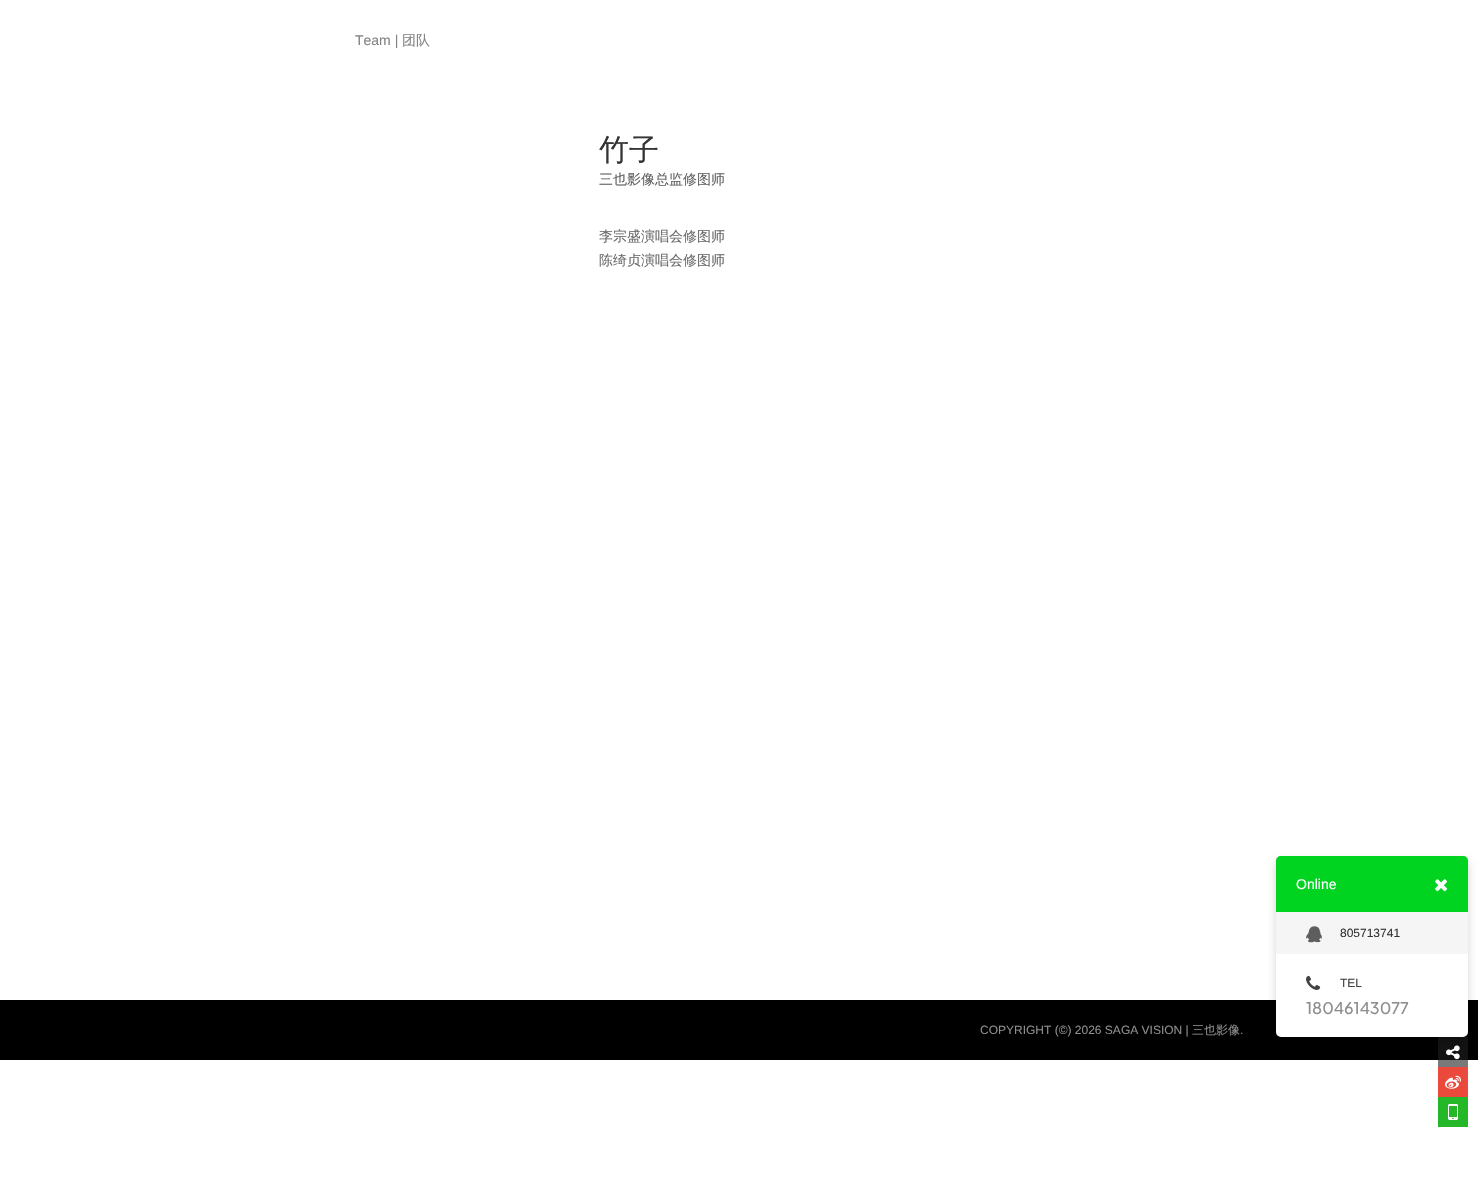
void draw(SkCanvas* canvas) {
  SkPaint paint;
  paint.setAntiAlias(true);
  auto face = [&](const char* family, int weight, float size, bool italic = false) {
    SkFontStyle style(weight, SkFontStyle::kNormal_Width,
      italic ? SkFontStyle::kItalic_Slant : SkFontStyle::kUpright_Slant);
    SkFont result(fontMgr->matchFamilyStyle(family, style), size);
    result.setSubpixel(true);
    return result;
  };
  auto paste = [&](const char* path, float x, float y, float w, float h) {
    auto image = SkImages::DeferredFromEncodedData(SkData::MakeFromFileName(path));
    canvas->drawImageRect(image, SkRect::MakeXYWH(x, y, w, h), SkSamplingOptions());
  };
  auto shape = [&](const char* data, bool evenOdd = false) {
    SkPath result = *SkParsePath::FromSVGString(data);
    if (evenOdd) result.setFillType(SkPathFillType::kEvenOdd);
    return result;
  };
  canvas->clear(0xffffffff);
  {
    const struct { float x, y, w, h; SkColor color; } items[] = {
      {1438, 1060, 30, 7, 0xff797979},
      {0, 1000, 1478, 60, 0xff000000},
      {1438, 1037, 30, 23, 0xff131313},
    };
    for (auto [x, y, w, h, color] : items) {
      paint.setColor(color);
      canvas->drawRect(SkRect::MakeXYWH(x, y, w, h), paint);
    }
  }
  paste("img/4.png", 1446, 1045, 14, 15);
  paint.setColor(0x2b040000);
  paint.setMaskFilter(SkMaskFilter::MakeBlur(kNormal_SkBlurStyle, 4.5f));
  canvas->drawRoundRect(SkRect::MakeXYWH(1276, 861, 192, 181), 5, 5, paint);
  paint.setMaskFilter(nullptr);
  paint.setColor(0xffffffff);
  canvas->drawRoundRect(SkRect::MakeXYWH(1276, 856, 192, 181), 5, 5, paint);
  paint.setColor(0xff00d420);
  canvas->drawPath(shape("M1281 856H1463C1466 856 1468 858 1468 861V912H1276V861C1276 858 1278 856 1281 856Z"), paint);
  paste("img/1.png", 1435, 879, 12, 13);
  paint.setColor(0xfff5f5f5);
  canvas->drawRect(SkRect::MakeXYWH(1276, 912, 192, 42), paint);
  paste("img/2.png", 1306, 926, 16, 17);
  paste("img/3.png", 1306, 975, 15, 15);
  paint.setColor(0xffea493c);
  canvas->drawRect(SkRect::MakeXYWH(1438, 1067, 30, 30), paint);
  paste("img/5.png", 1445, 1075, 16, 14);
  paint.setColor(0xff24b727);
  canvas->drawRect(SkRect::MakeXYWH(1438, 1097, 30, 30), paint);
  paste("img/6.png", 1448, 1104, 10, 16);
  auto f0 = face("Liberation Sans", 400, 14);
  paint.setColor(0xff838383);
  canvas->drawString("Team |", 355, 45, f0, paint);
  auto f1 = face("WenQuanYi Zen Hei", 500, 14);
  canvas->drawString("团队", 402, 45, f1, paint);
  auto f2 = face("WenQuanYi Zen Hei", 500, 30);
  paint.setColor(0xff343434);
  canvas->drawString("竹子", 599, 160, f2, paint);
  paint.setColor(0xff626262);
  canvas->drawString("三也影像总监修图师", 599, 184, f1, paint);
  paint.setColor(0xff6a6a6a);
  canvas->drawString("李宗盛演唱会修图师", 599, 241, f1, paint);
  canvas->drawString("陈绮贞演唱会修图师", 599, 265, f1, paint);
  paint.setColor(0xffffffff);
  canvas->drawString("Online", 1296, 889, f0, paint);
  auto f3 = face("Liberation Sans", 400, 12);
  paint.setColor(0xff343434);
  canvas->drawString("805713741", 1340, 937, f3, paint);
  paint.setColor(0xff434343);
  canvas->drawString("TEL", 1340, 987, f3, paint);
  auto f4 = face("Plus Jakarta Sans", 500, 16);
  paint.setColor(0xff8e8e8e);
  canvas->drawString("18046143077", 1306, 1014, f4, paint);
  canvas->drawString("COPYRIGHT (©) 2026 SAGA VISION |", 980, 1034, f3, paint);
  auto f5 = face("WenQuanYi Zen Hei", 500, 12);
  canvas->drawString("三也影像", 1192, 1034, f5, paint);
  canvas->drawString(".", 1240, 1034, f3, paint);
}
